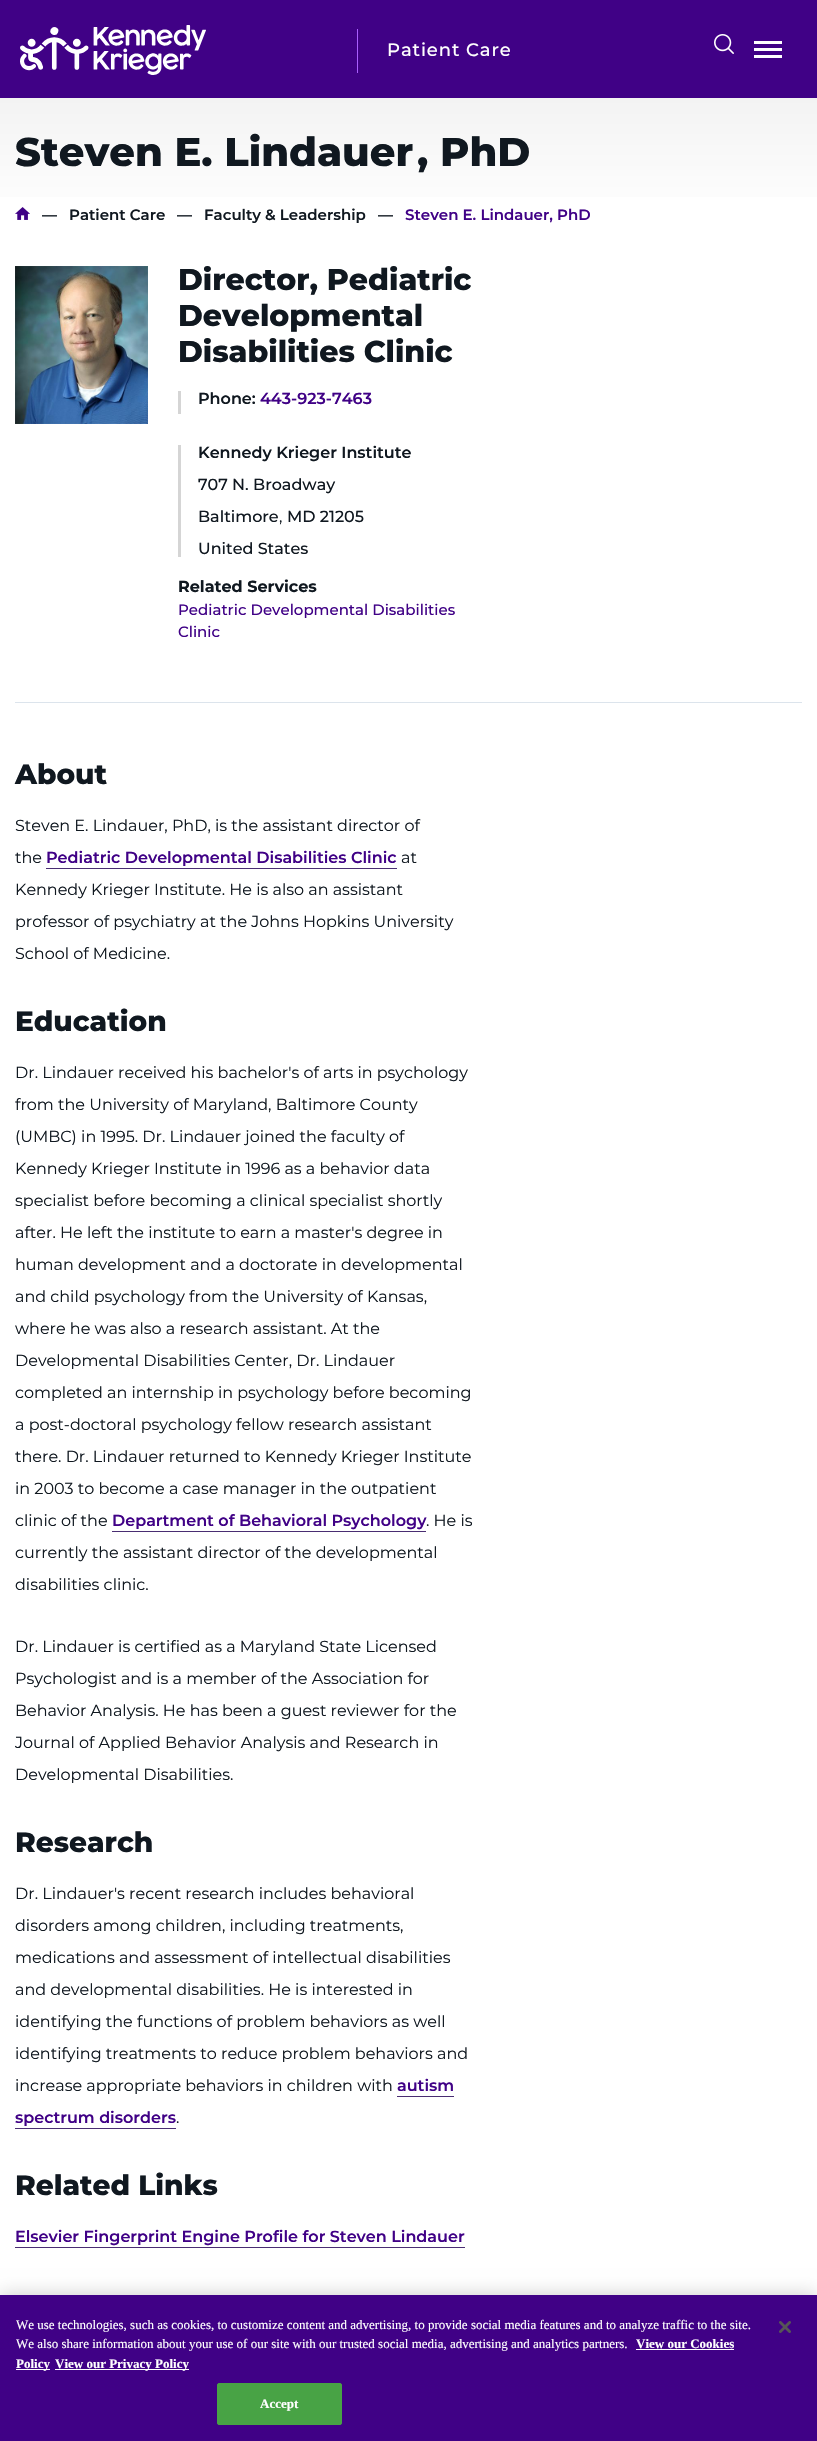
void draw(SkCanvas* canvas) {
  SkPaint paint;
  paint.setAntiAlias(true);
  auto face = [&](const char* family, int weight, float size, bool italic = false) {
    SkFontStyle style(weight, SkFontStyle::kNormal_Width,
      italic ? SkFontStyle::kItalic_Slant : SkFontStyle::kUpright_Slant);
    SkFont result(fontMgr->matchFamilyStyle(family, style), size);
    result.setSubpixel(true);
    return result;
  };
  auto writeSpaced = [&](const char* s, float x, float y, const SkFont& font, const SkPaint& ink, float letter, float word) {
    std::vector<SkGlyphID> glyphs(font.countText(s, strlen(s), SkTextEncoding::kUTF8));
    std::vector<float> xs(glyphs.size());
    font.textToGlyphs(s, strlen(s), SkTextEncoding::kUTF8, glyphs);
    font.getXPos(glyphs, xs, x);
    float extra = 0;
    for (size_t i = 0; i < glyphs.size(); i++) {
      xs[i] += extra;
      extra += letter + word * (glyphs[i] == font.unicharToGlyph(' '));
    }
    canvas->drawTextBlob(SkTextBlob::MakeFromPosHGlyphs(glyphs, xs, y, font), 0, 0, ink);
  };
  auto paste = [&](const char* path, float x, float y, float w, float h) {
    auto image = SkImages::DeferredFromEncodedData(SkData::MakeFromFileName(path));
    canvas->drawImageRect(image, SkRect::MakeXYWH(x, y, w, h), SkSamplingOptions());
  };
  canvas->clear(0xffffffff);
  paint.setColor(0xff400186);
  canvas->drawRect(SkRect::MakeXYWH(0, 0, 817, 98), paint);
  paste("img/1.png", 20, 25, 186, 50);
  paint.setColor(0xffaa5ffe);
  canvas->drawRect(SkRect::MakeXYWH(357, 29, 1, 44), paint);
  paste("img/2.png", 714, 34, 20, 20);
  {
    const struct { float x, y, w, h; SkColor color; } items[] = {
      {754, 41, 28, 3, 0xffffffff},
      {754, 48, 28, 3, 0xffffffff},
      {754, 55, 28, 3, 0xffffffff},
    };
    for (auto [x, y, w, h, color] : items) {
      paint.setColor(color);
      canvas->drawRect(SkRect::MakeXYWH(x, y, w, h), paint);
    }
  }
  {
    const SkColor colors[] = {0xfff3f3f3, 0xffffffff, 0xffffffff};
    const float stops[] = {0, 0.5f, 1};
    const SkPoint ends[] = {{409, 98}, {409, 348}};
    paint.setShader(SkGradientShader::MakeLinear(ends, colors, stops, 3, SkTileMode::kClamp));
    paint.setAlpha(255);
  }
  canvas->drawRect(SkRect::MakeXYWH(0, 98, 817, 99), paint);
  paste("img/3.png", 15, 207, 15, 13);
  paste("img/4.png", 15, 266, 133, 158);
  paint.setShader(nullptr);
  {
    const struct { float x, y, w, h; SkColor color; } items[] = {
      {178, 391, 3, 23, 0xffd5d5d5},
      {178, 445, 3, 112, 0xffd5d5d5},
      {15, 702, 787, 1, 0xffdce4ec},
      {46, 868, 351, 1, 0xff492d72},
      {112, 1531, 314, 1, 0xff492d72},
      {397, 2096, 57, 1, 0xff492d72},
      {15, 2128, 161, 1, 0xff492d72},
      {15, 2247, 450, 1, 0xff492d72},
    };
    for (auto [x, y, w, h, color] : items) {
      paint.setColor(color);
      canvas->drawRect(SkRect::MakeXYWH(x, y, w, h), paint);
    }
  }
  paint.setColor(0x33000000);
  paint.setMaskFilter(SkMaskFilter::MakeBlur(kNormal_SkBlurStyle, 9));
  canvas->drawRect(SkRect::MakeXYWH(0, 2295, 817, 146), paint);
  paint.setMaskFilter(nullptr);
  {
    const struct { float x, y, w, h; SkColor color; } items[] = {
      {0, 2295, 817, 146, 0xff400186},
      {636, 2349, 98, 1, 0xffffffff},
      {16, 2369, 34, 1, 0xffffffff},
      {55, 2369, 134, 1, 0xffffffff},
    };
    for (auto [x, y, w, h, color] : items) {
      paint.setColor(color);
      canvas->drawRect(SkRect::MakeXYWH(x, y, w, h), paint);
    }
  }
  paint.setColor(0xff48a345);
  canvas->drawRoundRect(SkRect::MakeXYWH(217.5f, 2383.5f, 124, 41), 1.5f, 1.5f, paint);
  paint.setStroke(true);
  paint.setStrokeWidth(1);
  canvas->drawRoundRect(SkRect::MakeXYWH(217.5f, 2383.5f, 124, 41), 1.5f, 1.5f, paint);
  paste("img/5.png", 779, 2321, 12, 12);
  auto f0 = face("Montserrat", 500, 18);
  paint.setStroke(false);
  paint.setColor(0xffffffff);
  writeSpaced("Patient Care", 387, 56, f0, paint, 0.9f, 0);
  auto f1 = face("Montserrat", 800, 40);
  paint.setColor(0xff101820);
  canvas->drawString("Steven E. Lindauer", 15, 166, f1, paint);
  canvas->drawString(", PhD", 417, 166, f1, paint);
  auto f2 = face("Montserrat", 600, 15);
  {
    const struct { const char* s; float x, y; } items[] = {
      {"—", 42, 220},
      {"Patient Care", 69, 220},
      {"—", 177, 220},
      {"Faculty & Leadership", 204, 220},
      {"—", 378, 220},
    };
    for (auto [s, x, y] : items) {
      canvas->drawString(s, x, y, f2, paint);
    }
  }
  paint.setColor(0xff400186);
  canvas->drawString("Steven E. Lindauer, PhD", 405, 220, f2, paint);
  auto f3 = face("Montserrat", 800, 30);
  paint.setColor(0xff101820);
  {
    const struct { const char* s; float x, y; } items[] = {
      {"Director, Pediatric", 178, 290},
      {"Developmental", 178, 326},
      {"Disabilities Clinic", 178, 362},
    };
    for (auto [s, x, y] : items) {
      canvas->drawString(s, x, y, f3, paint);
    }
  }
  auto f4 = face("Montserrat", 600, 16);
  canvas->drawString("Phone:", 198, 404, f4, paint);
  paint.setColor(0xff400186);
  canvas->drawString("443-923-7463", 260, 404, f4, paint);
  paint.setColor(0xff101820);
  canvas->drawString("Kennedy Krieger Institute", 198, 458, f4, paint);
  auto f5 = face("Montserrat", 500, 16);
  canvas->drawString("707 N. Broadway", 198, 490, f5, paint);
  canvas->drawString("Baltimore", 198, 522, f5, paint);
  auto f6 = face("Montserrat", 400, 16);
  canvas->drawString(",", 279, 522, f6, paint);
  canvas->drawString("MD 21205", 287, 522, f5, paint);
  canvas->drawString("United States", 198, 554, f5, paint);
  auto f7 = face("Montserrat", 700, 16);
  canvas->drawString("Related Services", 178, 592, f7, paint);
  auto f8 = face("Montserrat", 500, 15);
  paint.setColor(0xff400186);
  canvas->drawString("Pediatric Developmental Disabilities", 178, 615, f8, paint);
  canvas->drawString("Clinic", 178, 637, f8, paint);
  auto f9 = face("Montserrat", 800, 28);
  paint.setColor(0xff101820);
  canvas->drawString("About", 15, 784, f9, paint);
  canvas->drawString("Steven E. Lindauer, PhD, is the assistant director of", 15, 831, f6, paint);
  canvas->drawString("the", 15, 863, f6, paint);
  paint.setColor(0xff400186);
  canvas->drawString("Pediatric Developmental Disabilities Clinic", 46, 863, f4, paint);
  paint.setColor(0xff101820);
  {
    const struct { const char* s; float x, y; } items[] = {
      {"at", 401, 863},
      {"Kennedy Krieger Institute. He is also an assistant", 15, 895},
      {"professor of psychiatry at the Johns Hopkins University", 15, 927},
      {"School of Medicine.", 15, 959},
    };
    for (auto [s, x, y] : items) {
      canvas->drawString(s, x, y, f6, paint);
    }
  }
  canvas->drawString("Education", 15, 1031, f9, paint);
  {
    const struct { const char* s; float x, y; } items[] = {
      {"Dr. Lindauer received his bachelor's of arts in psychology", 15, 1078},
      {"from the University of Maryland, Baltimore County", 15, 1110},
      {"(UMBC) in 1995. Dr. Lindauer joined the faculty of", 15, 1142},
      {"Kennedy Krieger Institute in 1996 as a behavior data", 15, 1174},
      {"specialist before becoming a clinical specialist shortly", 15, 1206},
      {"after. He left the institute to earn a master's degree in", 15, 1238},
      {"human development and a doctorate in developmental", 15, 1270},
      {"and child psychology from the University of Kansas,", 15, 1302},
      {"where he was also a research assistant. At the", 15, 1334},
      {"Developmental Disabilities Center, Dr. Lindauer", 15, 1366},
      {"completed an internship in psychology before becoming", 15, 1398},
      {"a post-doctoral psychology fellow research assistant", 15, 1430},
      {"there. Dr. Lindauer returned to Kennedy Krieger Institute", 15, 1462},
      {"in 2003 to become a case manager in the outpatient", 15, 1494},
      {"clinic of the", 15, 1526},
    };
    for (auto [s, x, y] : items) {
      canvas->drawString(s, x, y, f6, paint);
    }
  }
  paint.setColor(0xff400186);
  canvas->drawString("Department of Behavioral Psychology", 112, 1526, f4, paint);
  paint.setColor(0xff101820);
  {
    const struct { const char* s; float x, y; } items[] = {
      {". He is", 426, 1526},
      {"currently the assistant director of the developmental", 15, 1558},
      {"disabilities clinic.", 15, 1590},
      {"Dr. Lindauer is certified as a Maryland State Licensed", 15, 1652},
      {"Psychologist and is a member of the Association for", 15, 1684},
      {"Behavior Analysis. He has been a guest reviewer for the", 15, 1716},
      {"Journal of Applied Behavior Analysis and Research in", 15, 1748},
      {"Developmental Disabilities.", 15, 1780},
    };
    for (auto [s, x, y] : items) {
      canvas->drawString(s, x, y, f6, paint);
    }
  }
  canvas->drawString("Research", 15, 1852, f9, paint);
  {
    const struct { const char* s; float x, y; } items[] = {
      {"Dr. Lindauer's recent research includes behavioral", 15, 1899},
      {"disorders among children, including treatments,", 15, 1931},
      {"medications and assessment of intellectual disabilities", 15, 1963},
      {"and developmental disabilities. He is interested in", 15, 1995},
      {"identifying the functions of problem behaviors as well", 15, 2027},
      {"identifying treatments to reduce problem behaviors and", 15, 2059},
      {"increase appropriate behaviors in children with", 15, 2091},
    };
    for (auto [s, x, y] : items) {
      canvas->drawString(s, x, y, f6, paint);
    }
  }
  paint.setColor(0xff400186);
  canvas->drawString("autism", 397, 2091, f4, paint);
  canvas->drawString("spectrum disorders", 15, 2123, f4, paint);
  paint.setColor(0xff101820);
  canvas->drawString(".", 176, 2123, f6, paint);
  canvas->drawString("Related Links", 15, 2195, f9, paint);
  paint.setColor(0xff400186);
  canvas->drawString("Elsevier Fingerprint Engine Profile for Steven Lindauer", 15, 2242, f4, paint);
  auto f10 = face("Liberation Serif", 400, 13);
  paint.setColor(0xffffffff);
  canvas->drawString("We use technologies, such as cookies, to customize content and advertising, to provide social media features and to analyze traffic to the site.", 16, 2329, f10, paint);
  canvas->drawString("We also share information about your use of our site with our trusted social media, advertising and analytics partners.", 16, 2348, f10, paint);
  auto f11 = face("Liberation Serif", 700, 13);
  {
    const struct { const char* s; float x, y; } items[] = {
      {"View our Cookies", 636, 2348},
      {"Policy", 16, 2368},
      {"View our Privacy Policy", 55, 2368},
      {"Accept", 260, 2408},
    };
    for (auto [s, x, y] : items) {
      canvas->drawString(s, x, y, f11, paint);
    }
  }
}
